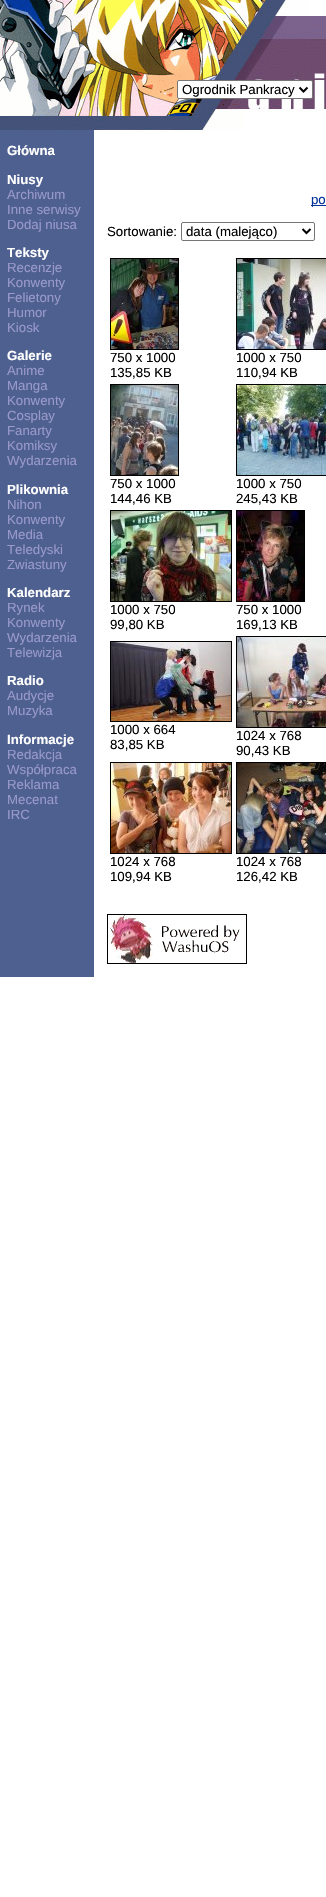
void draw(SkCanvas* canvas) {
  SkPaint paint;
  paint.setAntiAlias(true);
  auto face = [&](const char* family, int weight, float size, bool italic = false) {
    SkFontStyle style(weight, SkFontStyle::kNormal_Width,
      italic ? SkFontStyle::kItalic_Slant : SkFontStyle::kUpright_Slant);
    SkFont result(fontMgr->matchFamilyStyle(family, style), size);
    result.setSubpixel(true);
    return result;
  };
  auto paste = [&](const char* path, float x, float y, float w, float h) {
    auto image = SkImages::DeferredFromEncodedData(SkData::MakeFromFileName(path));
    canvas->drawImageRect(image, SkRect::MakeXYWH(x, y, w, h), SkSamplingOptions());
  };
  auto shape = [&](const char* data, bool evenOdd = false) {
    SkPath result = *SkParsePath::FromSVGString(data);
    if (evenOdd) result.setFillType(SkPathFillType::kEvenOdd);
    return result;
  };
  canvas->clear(0xffffffff);
  paste("img/1.png", 308, 16, 18, 8);
  paste("img/2.png", 0, 0, 243, 130);
  paste("img/3.png", 243, 0, 65, 112);
  paste("img/4.png", 308, 24, 18, 88);
  paint.setColor(0xffffffff);
  canvas->drawRoundRect(SkRect::MakeXYWH(177.5f, 80.5f, 135, 18), 1.5f, 1.5f, paint);
  paint.setStroke(true);
  paint.setStrokeWidth(1);
  paint.setColor(0xff767676);
  canvas->drawRoundRect(SkRect::MakeXYWH(177.5f, 80.5f, 135, 18), 1.5f, 1.5f, paint);
  paint.setStrokeWidth(2);
  paint.setColor(0xff000000);
  canvas->drawPath(shape("M299.5 87.5L303.5 91.5L307.5 87.5"), paint);
  paint.setStroke(false);
  paint.setColor(0xff4e608f);
  canvas->drawRect(SkRect::MakeXYWH(0, 130, 94, 847), paint);
  paint.setColor(0xff003399);
  canvas->drawRect(SkRect::MakeXYWH(311, 205, 15, 1), paint);
  paint.setStroke(true);
  paint.setStrokeWidth(1);
  paint.setColor(0xff767676);
  canvas->drawRoundRect(SkRect::MakeXYWH(181.5f, 222.5f, 133, 18), 1.5f, 1.5f, paint);
  paint.setStrokeWidth(2);
  paint.setColor(0xff000000);
  canvas->drawPath(shape("M302.5 229L306.5 233L310.5 229"), paint);
  paint.setStrokeWidth(1);
  canvas->drawRect(SkRect::MakeXYWH(110.5f, 258.5f, 68, 91), paint);
  paste("img/5.png", 111, 259, 67, 90);
  canvas->drawRect(SkRect::MakeXYWH(236.5f, 258.5f, 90, 91), paint);
  paste("img/6.png", 237, 259, 89, 90);
  canvas->drawRect(SkRect::MakeXYWH(110.5f, 384.5f, 68, 91), paint);
  paste("img/7.png", 111, 385, 67, 90);
  canvas->drawRect(SkRect::MakeXYWH(236.5f, 384.5f, 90, 91), paint);
  paste("img/8.png", 237, 385, 89, 90);
  canvas->drawRect(SkRect::MakeXYWH(110.5f, 510.5f, 121, 91), paint);
  paste("img/9.png", 111, 511, 120, 90);
  canvas->drawRect(SkRect::MakeXYWH(236.5f, 510.5f, 68, 91), paint);
  paste("img/10.png", 237, 511, 67, 90);
  canvas->drawRect(SkRect::MakeXYWH(110.5f, 641.5f, 121, 80), paint);
  paste("img/11.png", 111, 642, 120, 79);
  canvas->drawRect(SkRect::MakeXYWH(236.5f, 636.5f, 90, 91), paint);
  paste("img/12.png", 237, 637, 89, 90);
  canvas->drawRect(SkRect::MakeXYWH(110.5f, 762.5f, 121, 91), paint);
  paste("img/13.png", 111, 763, 120, 90);
  canvas->drawRect(SkRect::MakeXYWH(236.5f, 762.5f, 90, 91), paint);
  paste("img/14.png", 237, 763, 89, 90);
  paste("img/15.png", 107, 914, 140, 50);
  auto f0 = face("Liberation Sans", 400, 13.25f);
  paint.setStroke(false);
  canvas->drawString("Ogrodnik Pankracy", 182, 94, f0, paint);
  auto f1 = face("Liberation Sans", 700, 13.25f);
  paint.setColor(0xffffffff);
  canvas->drawString("Główna", 7, 155, f1, paint);
  canvas->drawString("Niusy", 7, 184, f1, paint);
  paint.setColor(0xff9999cc);
  {
    const struct { const char* s; float x, y; } items[] = {
      {"Archiwum", 7, 199},
      {"Inne serwisy", 7, 214},
      {"Dodaj niusa", 7, 229},
    };
    for (auto [s, x, y] : items) {
      canvas->drawString(s, x, y, f0, paint);
    }
  }
  paint.setColor(0xffffffff);
  canvas->drawString("Teksty", 7, 257, f1, paint);
  paint.setColor(0xff9999cc);
  {
    const struct { const char* s; float x, y; } items[] = {
      {"Recenzje", 7, 272},
      {"Konwenty", 7, 287},
      {"Felietony", 7, 302},
      {"Humor", 7, 317},
      {"Kiosk", 7, 332},
    };
    for (auto [s, x, y] : items) {
      canvas->drawString(s, x, y, f0, paint);
    }
  }
  paint.setColor(0xffffffff);
  canvas->drawString("Galerie", 7, 360, f1, paint);
  paint.setColor(0xff9999cc);
  {
    const struct { const char* s; float x, y; } items[] = {
      {"Anime", 7, 375},
      {"Manga", 7, 390},
      {"Konwenty", 7, 405},
      {"Cosplay", 7, 420},
      {"Fanarty", 7, 435},
      {"Komiksy", 7, 450},
      {"Wydarzenia", 7, 465},
    };
    for (auto [s, x, y] : items) {
      canvas->drawString(s, x, y, f0, paint);
    }
  }
  paint.setColor(0xffffffff);
  canvas->drawString("Plikownia", 7, 494, f1, paint);
  paint.setColor(0xff9999cc);
  {
    const struct { const char* s; float x, y; } items[] = {
      {"Nihon", 7, 509},
      {"Konwenty", 7, 524},
      {"Media", 7, 539},
      {"Teledyski", 7, 554},
      {"Zwiastuny", 7, 569},
    };
    for (auto [s, x, y] : items) {
      canvas->drawString(s, x, y, f0, paint);
    }
  }
  paint.setColor(0xffffffff);
  canvas->drawString("Kalendarz", 7, 597, f1, paint);
  paint.setColor(0xff9999cc);
  {
    const struct { const char* s; float x, y; } items[] = {
      {"Rynek", 7, 612},
      {"Konwenty", 7, 627},
      {"Wydarzenia", 7, 642},
      {"Telewizja", 7, 657},
    };
    for (auto [s, x, y] : items) {
      canvas->drawString(s, x, y, f0, paint);
    }
  }
  paint.setColor(0xffffffff);
  canvas->drawString("Radio", 7, 685, f1, paint);
  paint.setColor(0xff9999cc);
  canvas->drawString("Audycje", 7, 700, f0, paint);
  canvas->drawString("Muzyka", 7, 715, f0, paint);
  paint.setColor(0xffffffff);
  canvas->drawString("Informacje", 7, 744, f1, paint);
  paint.setColor(0xff9999cc);
  {
    const struct { const char* s; float x, y; } items[] = {
      {"Redakcja", 7, 759},
      {"Współpraca", 7, 774},
      {"Reklama", 7, 789},
      {"Mecenat", 7, 804},
      {"IRC", 7, 819},
    };
    for (auto [s, x, y] : items) {
      canvas->drawString(s, x, y, f0, paint);
    }
  }
  paint.setColor(0xff003399);
  canvas->drawString("po", 311, 204, f0, paint);
  paint.setColor(0xff000000);
  {
    const struct { const char* s; float x, y; } items[] = {
      {"Sortowanie:", 107, 236},
      {"data (malejąco)", 186, 236},
      {"750 x 1000", 110, 362},
      {"135,85 KB", 110, 377},
      {"1000 x 750", 236, 362},
      {"110,94 KB", 236, 377},
      {"750 x 1000", 110, 488},
      {"144,46 KB", 110, 503},
      {"1000 x 750", 236, 488},
      {"245,43 KB", 236, 503},
      {"1000 x 750", 110, 614},
      {"99,80 KB", 110, 629},
      {"750 x 1000", 236, 614},
      {"169,13 KB", 236, 629},
      {"1000 x 664", 110, 734},
      {"83,85 KB", 110, 749},
      {"1024 x 768", 236, 740},
      {"90,43 KB", 236, 755},
      {"1024 x 768", 110, 866},
      {"109,94 KB", 110, 881},
      {"1024 x 768", 236, 866},
      {"126,42 KB", 236, 881},
    };
    for (auto [s, x, y] : items) {
      canvas->drawString(s, x, y, f0, paint);
    }
  }
}
